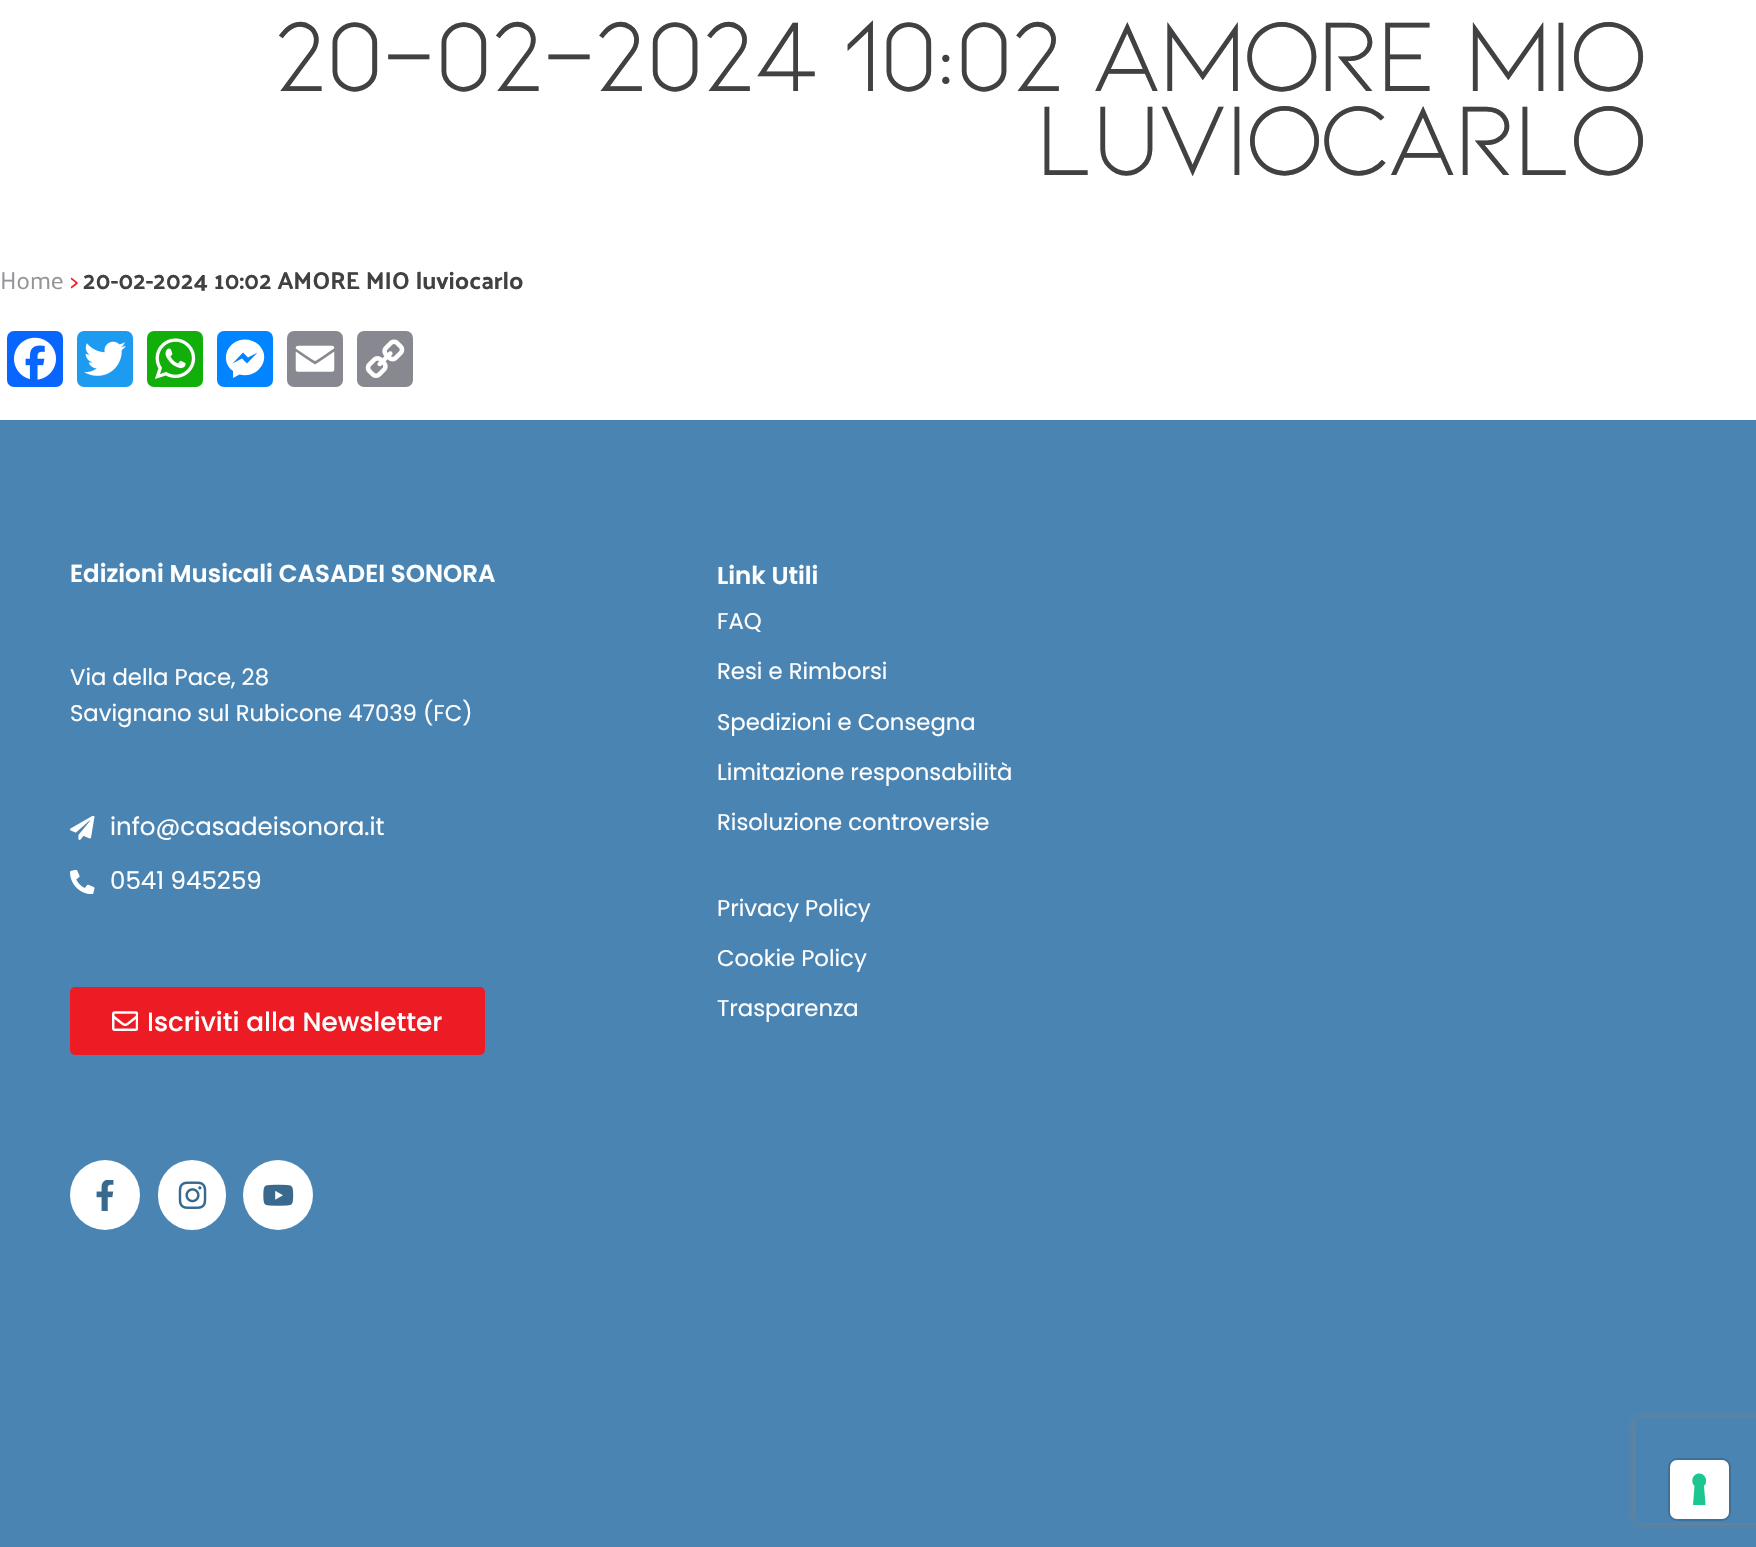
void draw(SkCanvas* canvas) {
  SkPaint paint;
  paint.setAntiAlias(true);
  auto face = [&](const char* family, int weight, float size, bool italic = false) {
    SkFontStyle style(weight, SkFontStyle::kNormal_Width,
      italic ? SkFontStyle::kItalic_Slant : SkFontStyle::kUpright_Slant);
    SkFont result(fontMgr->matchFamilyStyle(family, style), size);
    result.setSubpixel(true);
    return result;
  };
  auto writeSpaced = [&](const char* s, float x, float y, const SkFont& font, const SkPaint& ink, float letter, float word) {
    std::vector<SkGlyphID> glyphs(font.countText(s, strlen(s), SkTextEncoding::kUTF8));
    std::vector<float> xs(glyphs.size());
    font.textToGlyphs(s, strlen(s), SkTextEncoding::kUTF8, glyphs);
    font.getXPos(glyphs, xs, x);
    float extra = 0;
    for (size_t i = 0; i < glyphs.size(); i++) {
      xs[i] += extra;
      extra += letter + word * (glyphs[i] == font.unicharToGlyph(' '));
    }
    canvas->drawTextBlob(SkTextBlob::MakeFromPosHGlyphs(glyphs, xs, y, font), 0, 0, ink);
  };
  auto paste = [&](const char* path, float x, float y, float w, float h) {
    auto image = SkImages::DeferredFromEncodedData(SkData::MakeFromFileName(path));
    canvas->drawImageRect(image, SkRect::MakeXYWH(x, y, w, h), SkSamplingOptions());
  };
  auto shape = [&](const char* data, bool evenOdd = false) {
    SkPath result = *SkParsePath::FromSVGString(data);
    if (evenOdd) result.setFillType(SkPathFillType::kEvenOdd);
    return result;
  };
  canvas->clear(0xffffffff);
  paint.setColor(0xff0866ff);
  canvas->drawRoundRect(SkRect::MakeXYWH(7, 331, 56, 56), 7, 7, paint);
  paste("img/1.png", 14, 337, 42, 43);
  paint.setColor(0xff1d9bf0);
  canvas->drawRoundRect(SkRect::MakeXYWH(77, 331, 56, 56), 7, 7, paint);
  paste("img/2.png", 84, 341, 42, 35);
  paint.setColor(0xff12af0a);
  canvas->drawRoundRect(SkRect::MakeXYWH(147, 331, 56, 56), 7, 7, paint);
  paste("img/3.png", 155, 338, 41, 41);
  paint.setColor(0xff0084ff);
  canvas->drawRoundRect(SkRect::MakeXYWH(217, 331, 56, 56), 7, 7, paint);
  paint.setColor(0xffffffff);
  canvas->drawPath(shape("M245 339.5C227.5 339.5 219 360.5 233 371V378L239.5 374.5C257.5 379.5 273 358.5 258.5 344.5C255 341.5 250 339.5 245 339.5M247 363.5L242 358.5L232.5 363.5L243 352.5L248 357.5L257.5 352.5Z"), paint);
  paint.setColor(0xff888990);
  canvas->drawRoundRect(SkRect::MakeXYWH(287, 331, 56, 56), 7, 7, paint);
  paste("img/4.png", 295, 345, 40, 27);
  canvas->drawRoundRect(SkRect::MakeXYWH(357, 331, 56, 56), 7, 7, paint);
  paste("img/5.png", 365, 339, 40, 39);
  paint.setColor(0xff4a84b3);
  canvas->drawRect(SkRect::MakeXYWH(0, 420, 1756, 1127), paint);
  paste("img/6.png", 70, 816, 25, 24);
  paste("img/7.png", 70, 870, 25, 24);
  paint.setColor(0xffed1b24);
  canvas->drawRoundRect(SkRect::MakeXYWH(70, 987, 415, 68), 5, 5, paint);
  paste("img/8.png", 112, 1011, 26, 20);
  paint.setColor(0xffffffff);
  canvas->drawCircle(105, 1195, 35, paint);
  paste("img/9.png", 96, 1180, 18, 31);
  canvas->drawRoundRect(SkRect::MakeXYWH(158, 1160, 68, 70), 34, 34, paint);
  paste("img/10.png", 178, 1181, 29, 28);
  canvas->drawCircle(278, 1195, 35, paint);
  paste("img/11.png", 263, 1184, 31, 22);
  canvas->save();
  canvas->clipPath(shape("M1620 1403H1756V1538H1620ZM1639 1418H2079C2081 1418 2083 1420 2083 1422V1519C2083 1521 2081 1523 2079 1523H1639C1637 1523 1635 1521 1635 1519V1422C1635 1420 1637 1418 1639 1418Z", true), true);
  paint.setColor(0xff808080);
  paint.setMaskFilter(SkMaskFilter::MakeBlur(kNormal_SkBlurStyle, 4.5f));
  canvas->drawRoundRect(SkRect::MakeXYWH(1635, 1418, 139, 105), 4, 4, paint);
  paint.setMaskFilter(nullptr);
  canvas->restore();
  paint.setStroke(true);
  paint.setStrokeWidth(2);
  paint.setColor(0xff3f7098);
  canvas->drawRoundRect(SkRect::MakeXYWH(1669, 1459, 61, 61), 8, 8, paint);
  paint.setStroke(false);
  paint.setColor(0xffffffff);
  canvas->drawRoundRect(SkRect::MakeXYWH(1670, 1460, 59, 59), 7, 7, paint);
  paint.setColor(0xff1cc691);
  canvas->drawPath(shape("M1699 1473.5C1705.5 1473.5 1708.5 1481.5 1704 1486L1705.5 1505H1693L1694.5 1486C1690 1481.5 1693 1473.5 1699 1473.5Z", true), paint);
  auto f0 = face("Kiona", 400, 105);
  paint.setColor(0xff414042);
  writeSpaced("20-02-2024 10:02 AMORE MIO", 272, 91, f0, paint, -5.25f, 0);
  writeSpaced("luviocarlo", 1035, 175, f0, paint, -5.25f, 0);
  auto f1 = face("Palanquin", 400, 24.5f);
  paint.setColor(0xff939598);
  canvas->drawString("Home", 0, 289, f1, paint);
  paint.setColor(0xffed1c24);
  canvas->drawString(">", 70, 289, f1, paint);
  auto f2 = face("Palanquin", 700, 24.5f);
  paint.setColor(0xff414042);
  canvas->drawString("20-02-2024 10:02 AMORE MIO luviocarlo", 83, 289, f2, paint);
  auto f3 = face("Poppins", 600, 24.5f);
  paint.setColor(0xffffffff);
  canvas->drawString("Edizioni Musicali CASADEI SONORA", 70, 582, f3, paint);
  auto f4 = face("Poppins", 400, 22.75f);
  canvas->drawString("Via della Pace, 28", 70, 685, f4, paint);
  canvas->drawString("Savignano sul Rubicone 47039 (FC)", 70, 721, f4, paint);
  auto f5 = face("Poppins", 400, 24.5f);
  canvas->drawString("info@casadeisonora.it", 110, 835, f5, paint);
  canvas->drawString("0541 945259", 110, 889, f5, paint);
  auto f6 = face("Poppins", 500, 26.25f);
  canvas->drawString("Iscriviti alla Newsletter", 147, 1031, f6, paint);
  canvas->drawString("Link Utili", 717, 584, f3, paint);
  {
    const struct { const char* s; float x, y; } items[] = {
      {"FAQ", 717, 629},
      {"Resi e Rimborsi", 717, 679},
      {"Spedizioni e Consegna", 717, 730},
      {"Limitazione responsabilità", 717, 780},
      {"Risoluzione controversie", 717, 830},
      {"Privacy Policy", 717, 916},
      {"Cookie Policy", 717, 966},
      {"Trasparenza", 717, 1016},
    };
    for (auto [s, x, y] : items) {
      canvas->drawString(s, x, y, f4, paint);
    }
  }
}
